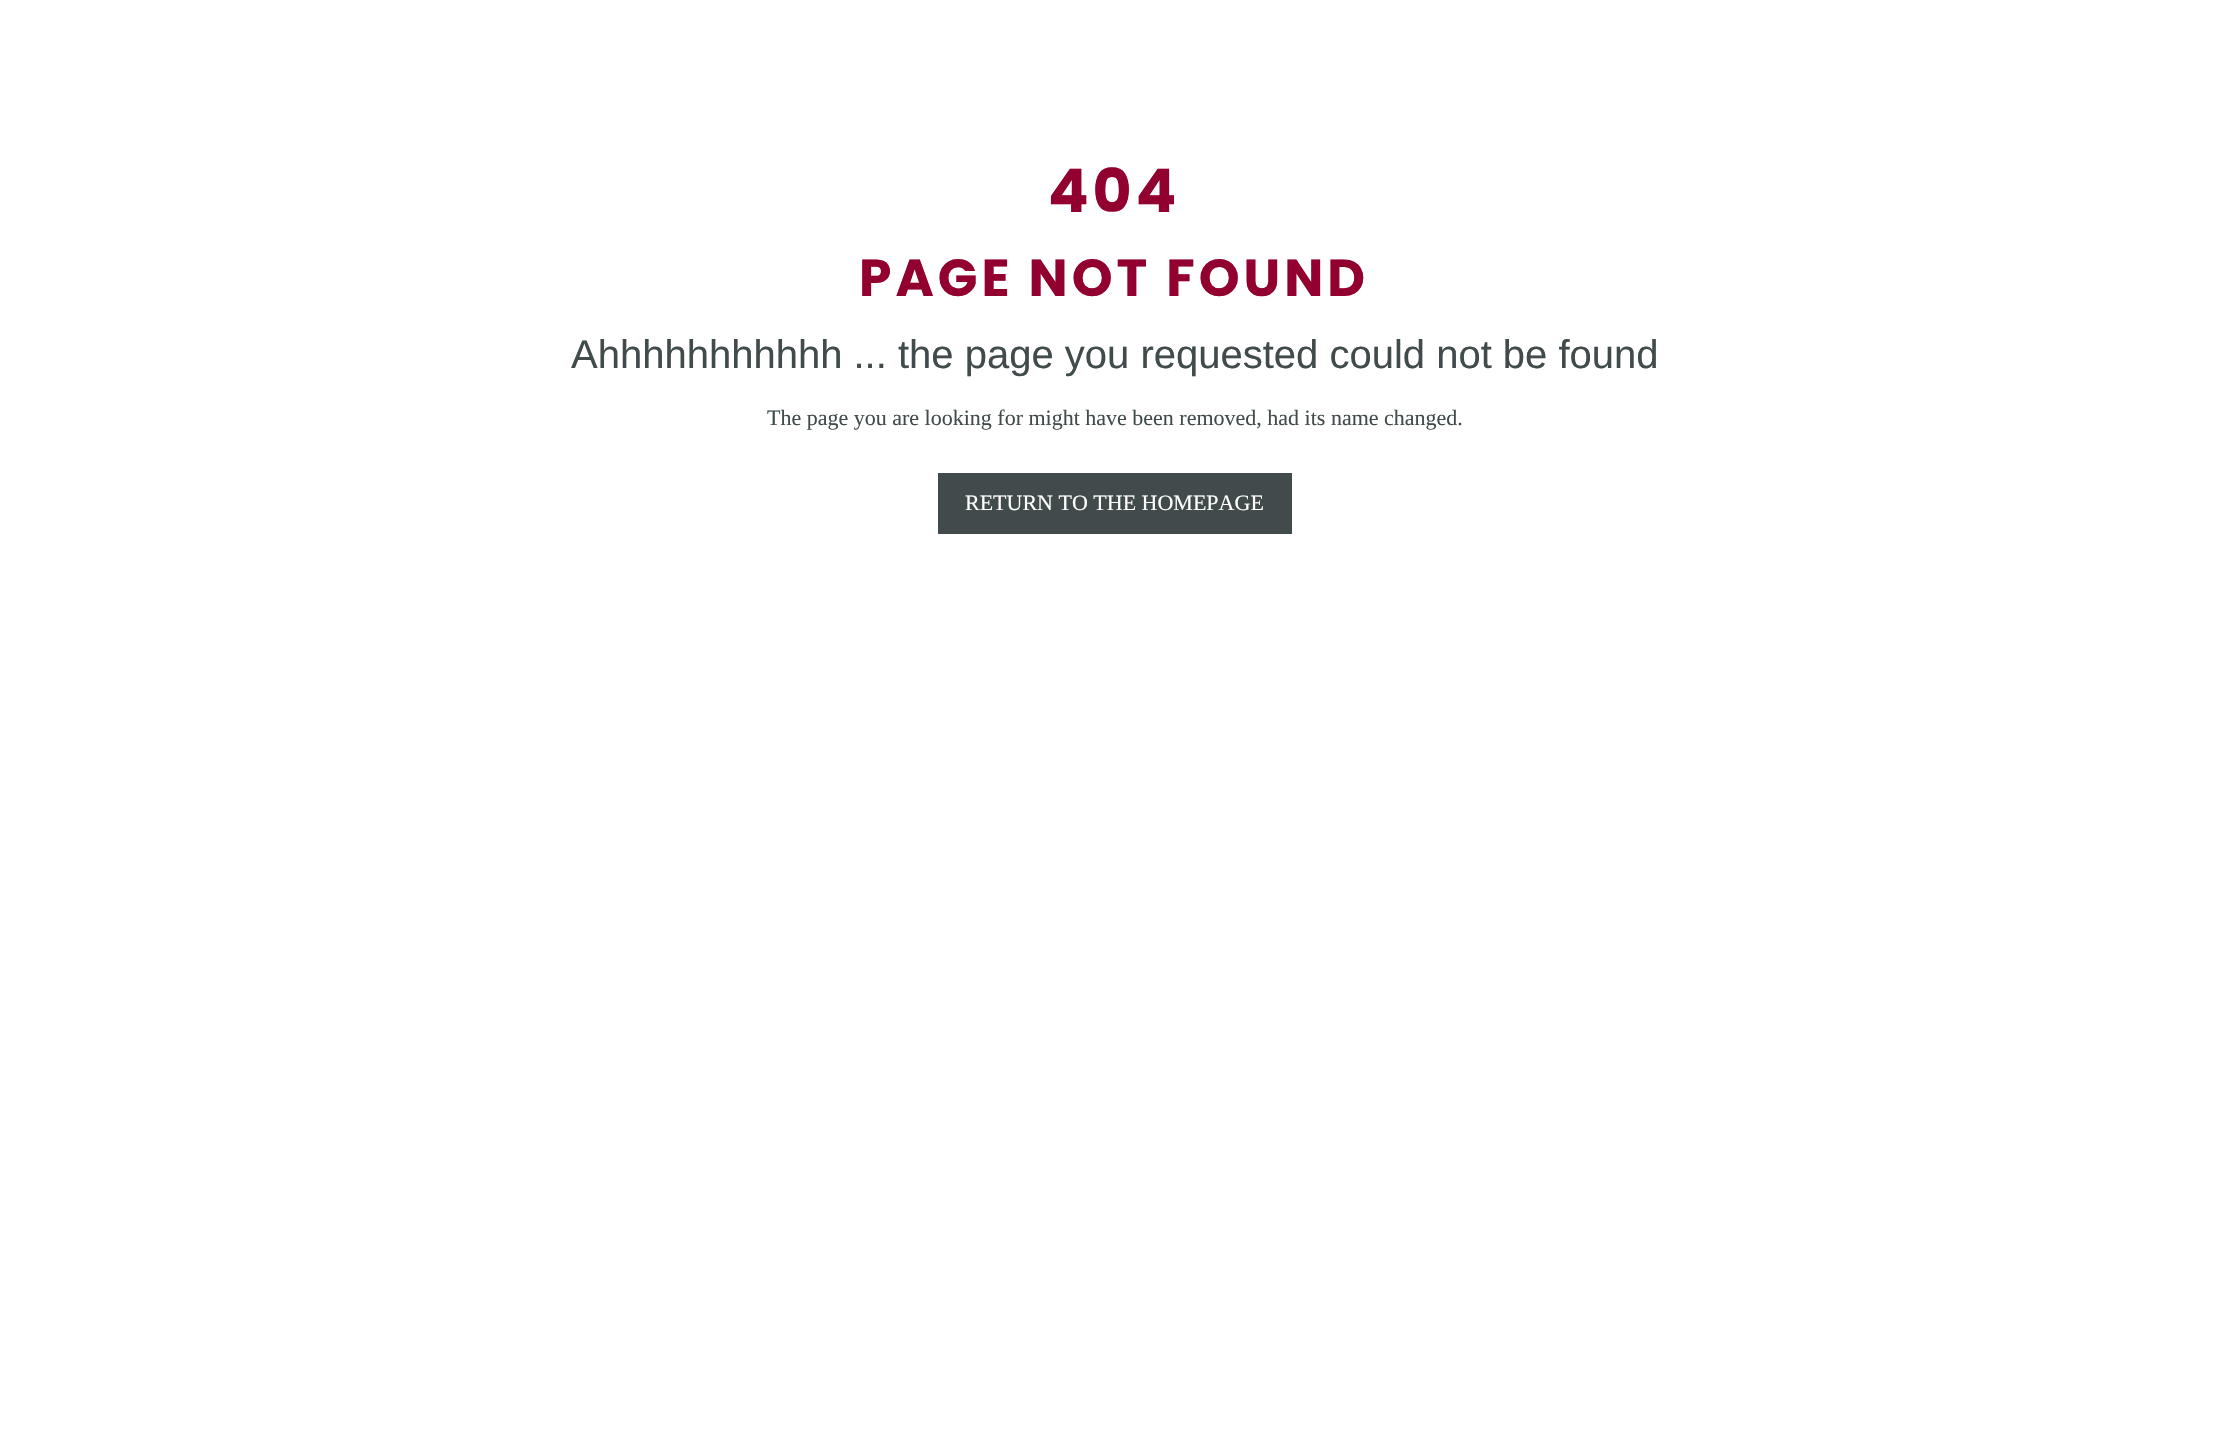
void draw(SkCanvas* canvas) {
  SkPaint paint;
  paint.setAntiAlias(true);
  auto face = [&](const char* family, int weight, float size, bool italic = false) {
    SkFontStyle style(weight, SkFontStyle::kNormal_Width,
      italic ? SkFontStyle::kItalic_Slant : SkFontStyle::kUpright_Slant);
    SkFont result(fontMgr->matchFamilyStyle(family, style), size);
    result.setSubpixel(true);
    return result;
  };
  auto writeSpaced = [&](const char* s, float x, float y, const SkFont& font, const SkPaint& ink, float letter, float word) {
    std::vector<SkGlyphID> glyphs(font.countText(s, strlen(s), SkTextEncoding::kUTF8));
    std::vector<float> xs(glyphs.size());
    font.textToGlyphs(s, strlen(s), SkTextEncoding::kUTF8, glyphs);
    font.getXPos(glyphs, xs, x);
    float extra = 0;
    for (size_t i = 0; i < glyphs.size(); i++) {
      xs[i] += extra;
      extra += letter + word * (glyphs[i] == font.unicharToGlyph(' '));
    }
    canvas->drawTextBlob(SkTextBlob::MakeFromPosHGlyphs(glyphs, xs, y, font), 0, 0, ink);
  };
  canvas->clear(0xffffffff);
  paint.setColor(0xff414b4b);
  canvas->drawRect(SkRect::MakeXYWH(938, 473, 354, 61), paint);
  auto f0 = face("Poppins", 700, 60);
  paint.setColor(0xff91002e);
  writeSpaced("404", 1048, 212, f0, paint, 4, 0);
  auto f1 = face("Poppins", 700, 52);
  writeSpaced("PAGE NOT FOUND", 859, 296, f1, paint, 4, 0);
  auto f2 = face("Liberation Sans", 400, 40);
  paint.setColor(0xff414b4b);
  canvas->drawString("Ahhhhhhhhhhh ... the page you requested could not be found", 571, 368, f2, paint);
  auto f3 = face("Liberation Serif", 400, 22);
  canvas->drawString("The page you are looking for might have been removed, had its name changed.", 767, 425, f3, paint);
  paint.setColor(0xffffffff);
  canvas->drawString("RETURN TO THE HOMEPAGE", 965, 510, f3, paint);
}
